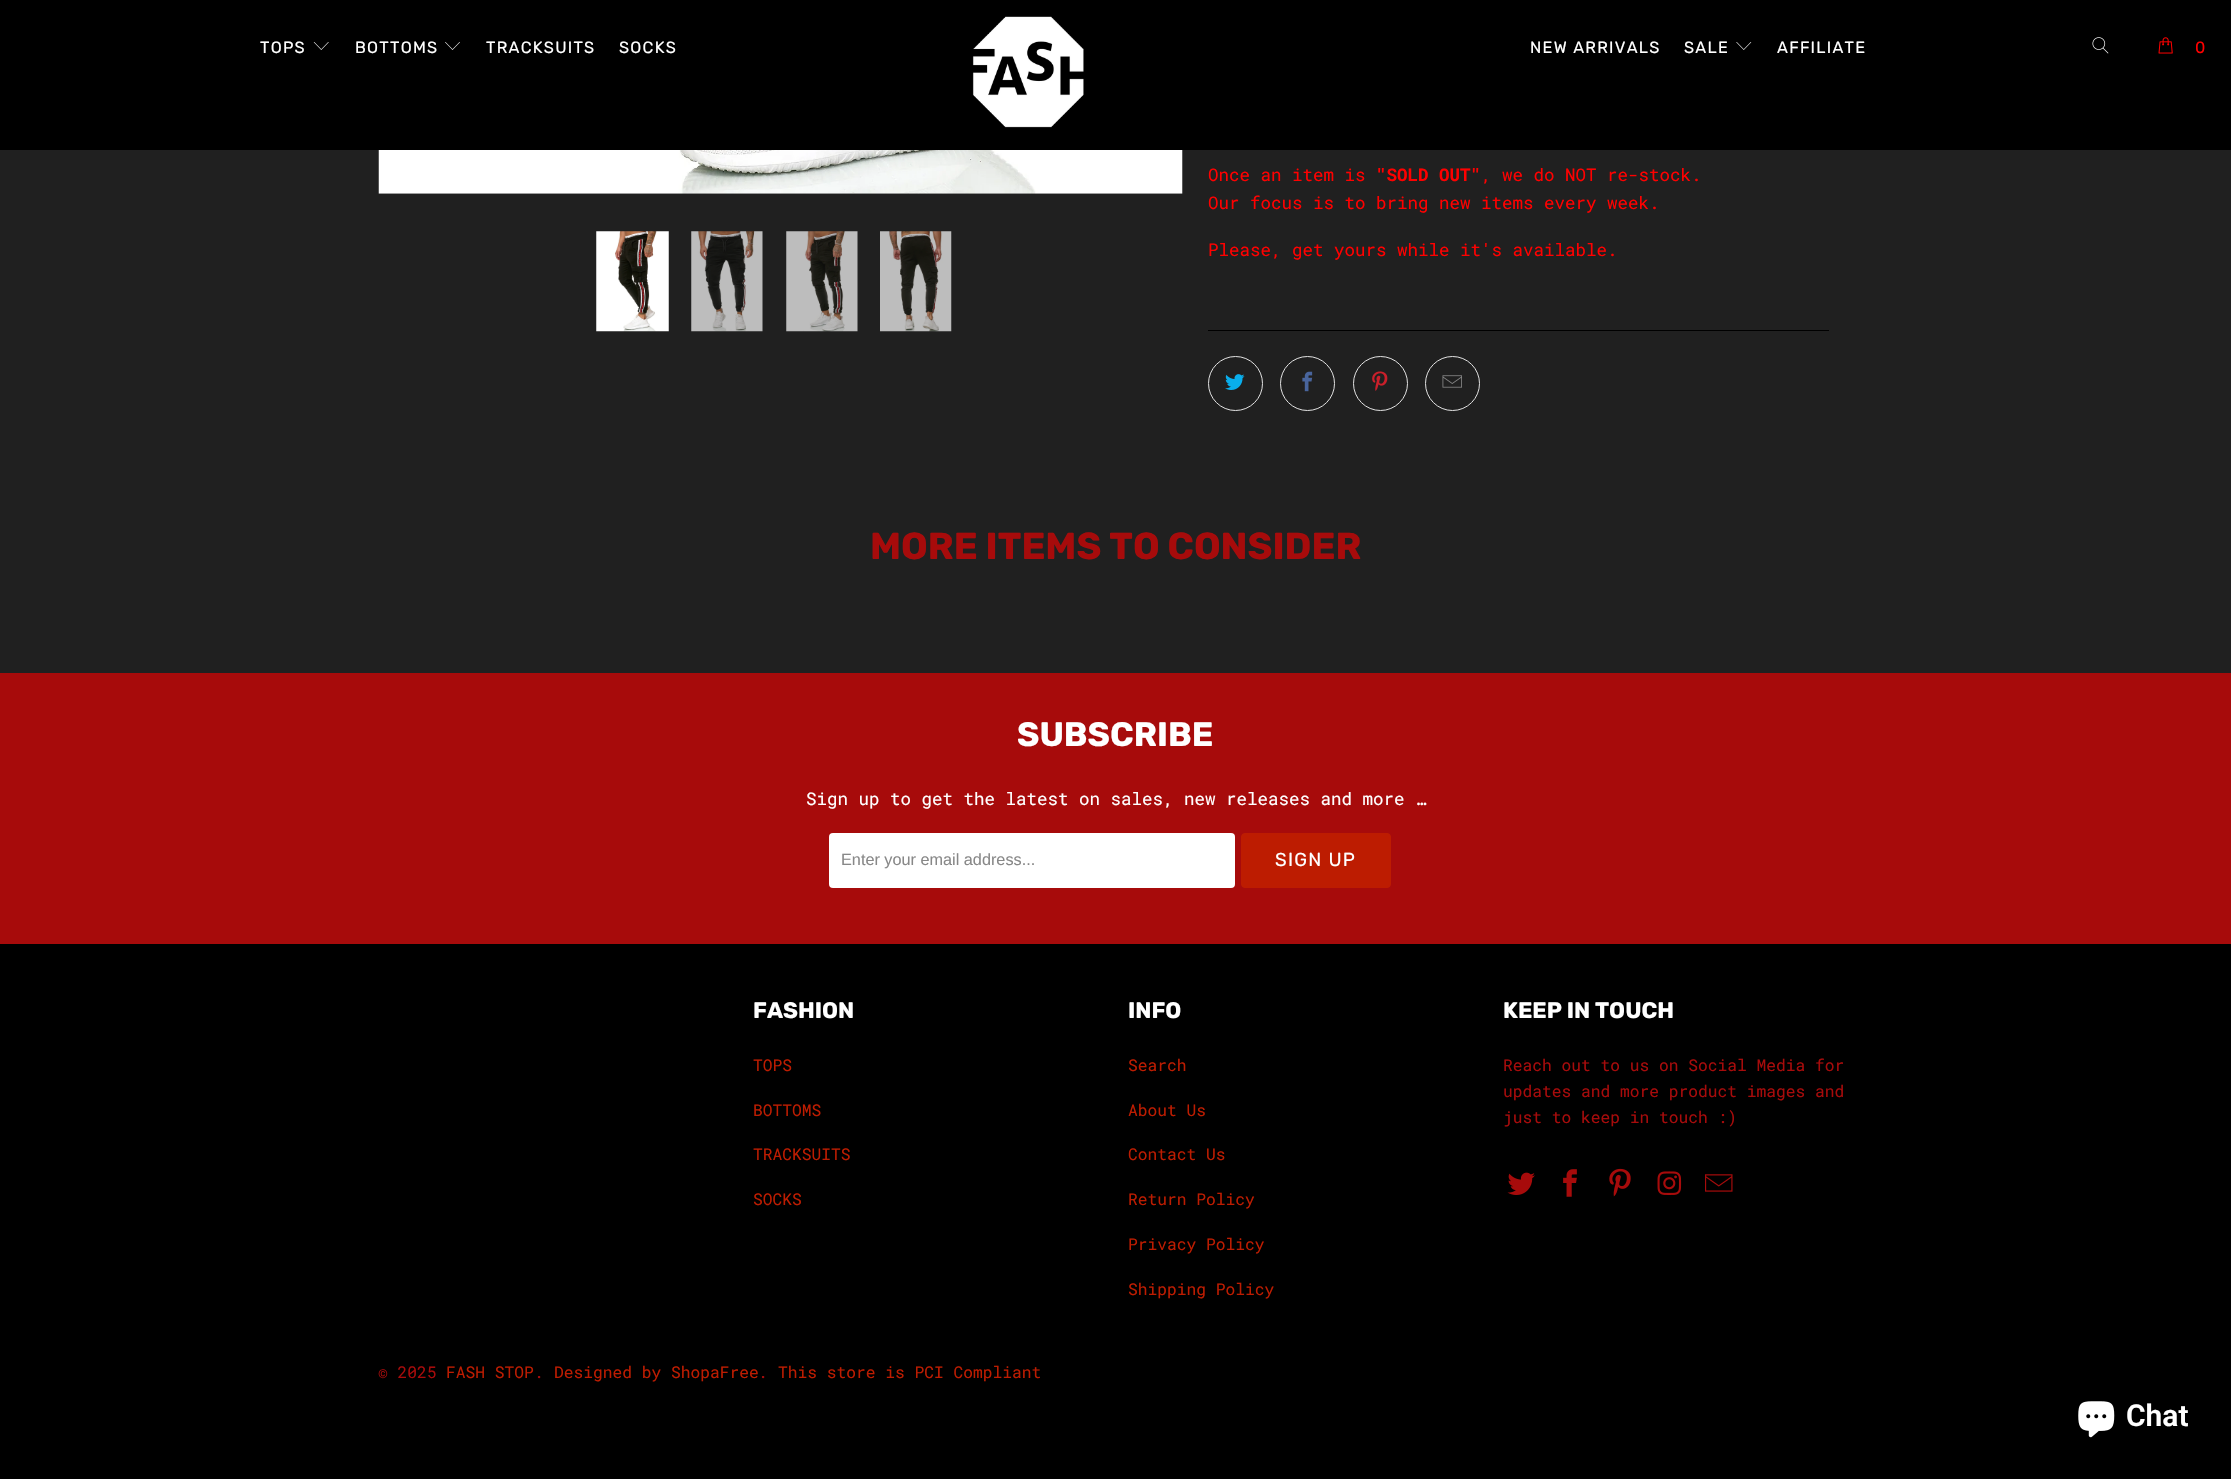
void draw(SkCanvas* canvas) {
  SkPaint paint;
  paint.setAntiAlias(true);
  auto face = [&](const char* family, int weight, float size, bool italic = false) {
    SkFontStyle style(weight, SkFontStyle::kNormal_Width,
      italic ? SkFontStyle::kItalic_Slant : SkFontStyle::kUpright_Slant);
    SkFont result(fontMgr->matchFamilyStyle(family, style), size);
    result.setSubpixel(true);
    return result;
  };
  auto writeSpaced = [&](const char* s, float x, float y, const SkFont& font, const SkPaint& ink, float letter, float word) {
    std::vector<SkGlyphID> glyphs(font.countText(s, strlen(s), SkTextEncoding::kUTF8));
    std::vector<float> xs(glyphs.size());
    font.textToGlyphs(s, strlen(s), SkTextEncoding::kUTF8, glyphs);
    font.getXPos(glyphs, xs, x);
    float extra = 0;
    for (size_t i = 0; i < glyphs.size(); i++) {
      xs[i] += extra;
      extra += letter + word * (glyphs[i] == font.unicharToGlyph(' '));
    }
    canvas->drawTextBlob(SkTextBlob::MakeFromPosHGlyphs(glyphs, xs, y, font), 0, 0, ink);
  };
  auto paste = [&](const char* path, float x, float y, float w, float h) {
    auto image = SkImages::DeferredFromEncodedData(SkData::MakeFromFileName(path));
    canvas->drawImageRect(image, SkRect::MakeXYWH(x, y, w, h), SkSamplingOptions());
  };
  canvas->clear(0xff202020);
  paint.setColor(0xff000000);
  canvas->drawRect(SkRect::MakeXYWH(0, 0, 2231, 150), paint);
  paste("img/1.png", 313, 42, 16, 8);
  paste("img/2.png", 445, 42, 15, 8);
  paste("img/3.png", 972, 16, 112, 112);
  paste("img/4.png", 1736, 42, 16, 8);
  paste("img/5.png", 2092, 37, 17, 17);
  paste("img/6.png", 2158, 37, 15, 17);
  paste("img/7.png", 378, 150, 805, 44);
  paste("img/8.png", 596, 231, 73, 101);
  paste("img/9.png", 691, 231, 72, 101);
  paste("img/10.png", 786, 231, 72, 101);
  paste("img/11.png", 880, 231, 72, 101);
  canvas->drawRect(SkRect::MakeXYWH(1208, 330, 621, 1), paint);
  paint.setStroke(true);
  paint.setStrokeWidth(1);
  paint.setColor(0xffe2e2e2);
  canvas->drawCircle(1235.5f, 383.5f, 27, paint);
  paste("img/12.png", 1225, 374, 20, 16);
  canvas->drawCircle(1307.5f, 383.5f, 27, paint);
  paste("img/13.png", 1302, 371, 11, 21);
  canvas->drawCircle(1380.5f, 383.5f, 27, paint);
  paste("img/14.png", 1372, 371, 16, 20);
  canvas->drawCircle(1452.5f, 383.5f, 27, paint);
  paste("img/15.png", 1442, 375, 20, 13);
  paint.setStroke(false);
  paint.setColor(0xffa70b0b);
  canvas->drawRect(SkRect::MakeXYWH(0, 673, 2231, 271), paint);
  paint.setColor(0xffffffff);
  canvas->drawRoundRect(SkRect::MakeXYWH(829, 833, 406, 55), 4, 4, paint);
  paint.setColor(0xffbd1c01);
  canvas->drawRoundRect(SkRect::MakeXYWH(1241.5f, 833.5f, 149, 54), 3.5f, 3.5f, paint);
  paint.setStroke(true);
  canvas->drawRoundRect(SkRect::MakeXYWH(1241.5f, 833.5f, 149, 54), 3.5f, 3.5f, paint);
  paint.setStroke(false);
  paint.setColor(0xff000000);
  canvas->drawRect(SkRect::MakeXYWH(0, 944, 2231, 535), paint);
  paste("img/16.png", 1507, 1172, 28, 23);
  paste("img/17.png", 1563, 1169, 14, 28);
  paste("img/18.png", 1609, 1168, 22, 29);
  paste("img/19.png", 1657, 1171, 25, 24);
  paste("img/20.png", 1705, 1174, 28, 18);
  paste("img/21.png", 2078, 1401, 37, 37);
  auto f0 = face("Rubik", 400, 16.25f);
  paint.setColor(0xffffffff);
  {
    const struct { const char* s; float x, y; } items[] = {
      {"TOPS", 260, 53},
      {"BOTTOMS", 355, 53},
      {"TRACKSUITS", 486, 53},
      {"SOCKS", 619, 53},
      {"NEW ARRIVALS", 1530, 53},
      {"SALE", 1684, 53},
      {"AFFILIATE", 1777, 53},
    };
    for (auto [s, x, y] : items) {
      writeSpaced(s, x, y, f0, paint, 1.25f, 0);
    }
  }
  paint.setColor(0xffff0000);
  writeSpaced("0", 2195, 53, f0, paint, 1.25f, 0);
  auto f1 = face("Roboto Mono", 400, 17.5f);
  canvas->drawString("Once an item is", 1208, 181, f1, paint);
  auto f2 = face("Roboto Mono", 700, 17.5f);
  canvas->drawString("\"SOLD OUT\"", 1376, 181, f2, paint);
  {
    const struct { const char* s; float x, y; } items[] = {
      {", we do NOT re-stock.", 1481, 181},
      {"Our focus is to bring new items every week.", 1208, 209},
      {"Please, get yours while it's available.", 1208, 256},
    };
    for (auto [s, x, y] : items) {
      canvas->drawString(s, x, y, f1, paint);
    }
  }
  auto f3 = face("Rubik", 700, 37.5f);
  paint.setColor(0xffa70b0b);
  canvas->drawString("MORE ITEMS TO CONSIDER", 870, 559, f3, paint);
  auto f4 = face("Rubik", 700, 33.75f);
  paint.setColor(0xffffffff);
  canvas->drawString("SUBSCRIBE", 1017, 746, f4, paint);
  canvas->drawString("Sign up to get the latest on sales, new releases and more …", 806, 805, f1, paint);
  auto f5 = face("Liberation Sans", 400, 16.25f);
  paint.setColor(0xff888888);
  canvas->drawString("Enter your email address...", 841, 865, f5, paint);
  auto f6 = face("Rubik", 400, 18.75f);
  paint.setColor(0xffffffff);
  writeSpaced("SIGN UP", 1275, 866, f6, paint, 1.25f, 0);
  auto f7 = face("Rubik", 700, 22.5f);
  canvas->drawString("FASHION", 753, 1018, f7, paint);
  auto f8 = face("Roboto Mono", 400, 16.25f);
  paint.setColor(0xffbd1c01);
  {
    const struct { const char* s; float x, y; } items[] = {
      {"TOPS", 753, 1071},
      {"BOTTOMS", 753, 1116},
      {"TRACKSUITS", 753, 1160},
      {"SOCKS", 753, 1205},
    };
    for (auto [s, x, y] : items) {
      canvas->drawString(s, x, y, f8, paint);
    }
  }
  paint.setColor(0xffffffff);
  canvas->drawString("INFO", 1128, 1018, f7, paint);
  paint.setColor(0xffbd1c01);
  {
    const struct { const char* s; float x, y; } items[] = {
      {"Search", 1128, 1071},
      {"About Us", 1128, 1116},
      {"Contact Us", 1128, 1160},
      {"Return Policy", 1128, 1205},
      {"Privacy Policy", 1128, 1250},
      {"Shipping Policy", 1128, 1295},
    };
    for (auto [s, x, y] : items) {
      canvas->drawString(s, x, y, f8, paint);
    }
  }
  paint.setColor(0xffffffff);
  canvas->drawString("KEEP IN TOUCH", 1503, 1018, f7, paint);
  paint.setColor(0xffa70b0b);
  {
    const struct { const char* s; float x, y; } items[] = {
      {"Reach out to us on Social Media for", 1503, 1071},
      {"updates and more product images and", 1503, 1097},
      {"just to keep in touch :)", 1503, 1123},
      {"© 2025", 378, 1378},
    };
    for (auto [s, x, y] : items) {
      canvas->drawString(s, x, y, f8, paint);
    }
  }
  paint.setColor(0xffbd1c01);
  canvas->drawString("FASH STOP", 446, 1378, f8, paint);
  paint.setColor(0xffa70b0b);
  canvas->drawString(".", 534, 1378, f8, paint);
  paint.setColor(0xffbd1c01);
  canvas->drawString("Designed by ShopaFree", 554, 1378, f8, paint);
  paint.setColor(0xffa70b0b);
  canvas->drawString(".", 758, 1378, f8, paint);
  paint.setColor(0xffbd1c01);
  canvas->drawString("This store is PCI Compliant", 778, 1378, f8, paint);
  auto f9 = face("Roboto", 600, 30);
  paint.setColor(0xffffffff);
  canvas->drawString("Chat", 2126, 1426, f9, paint);
}
